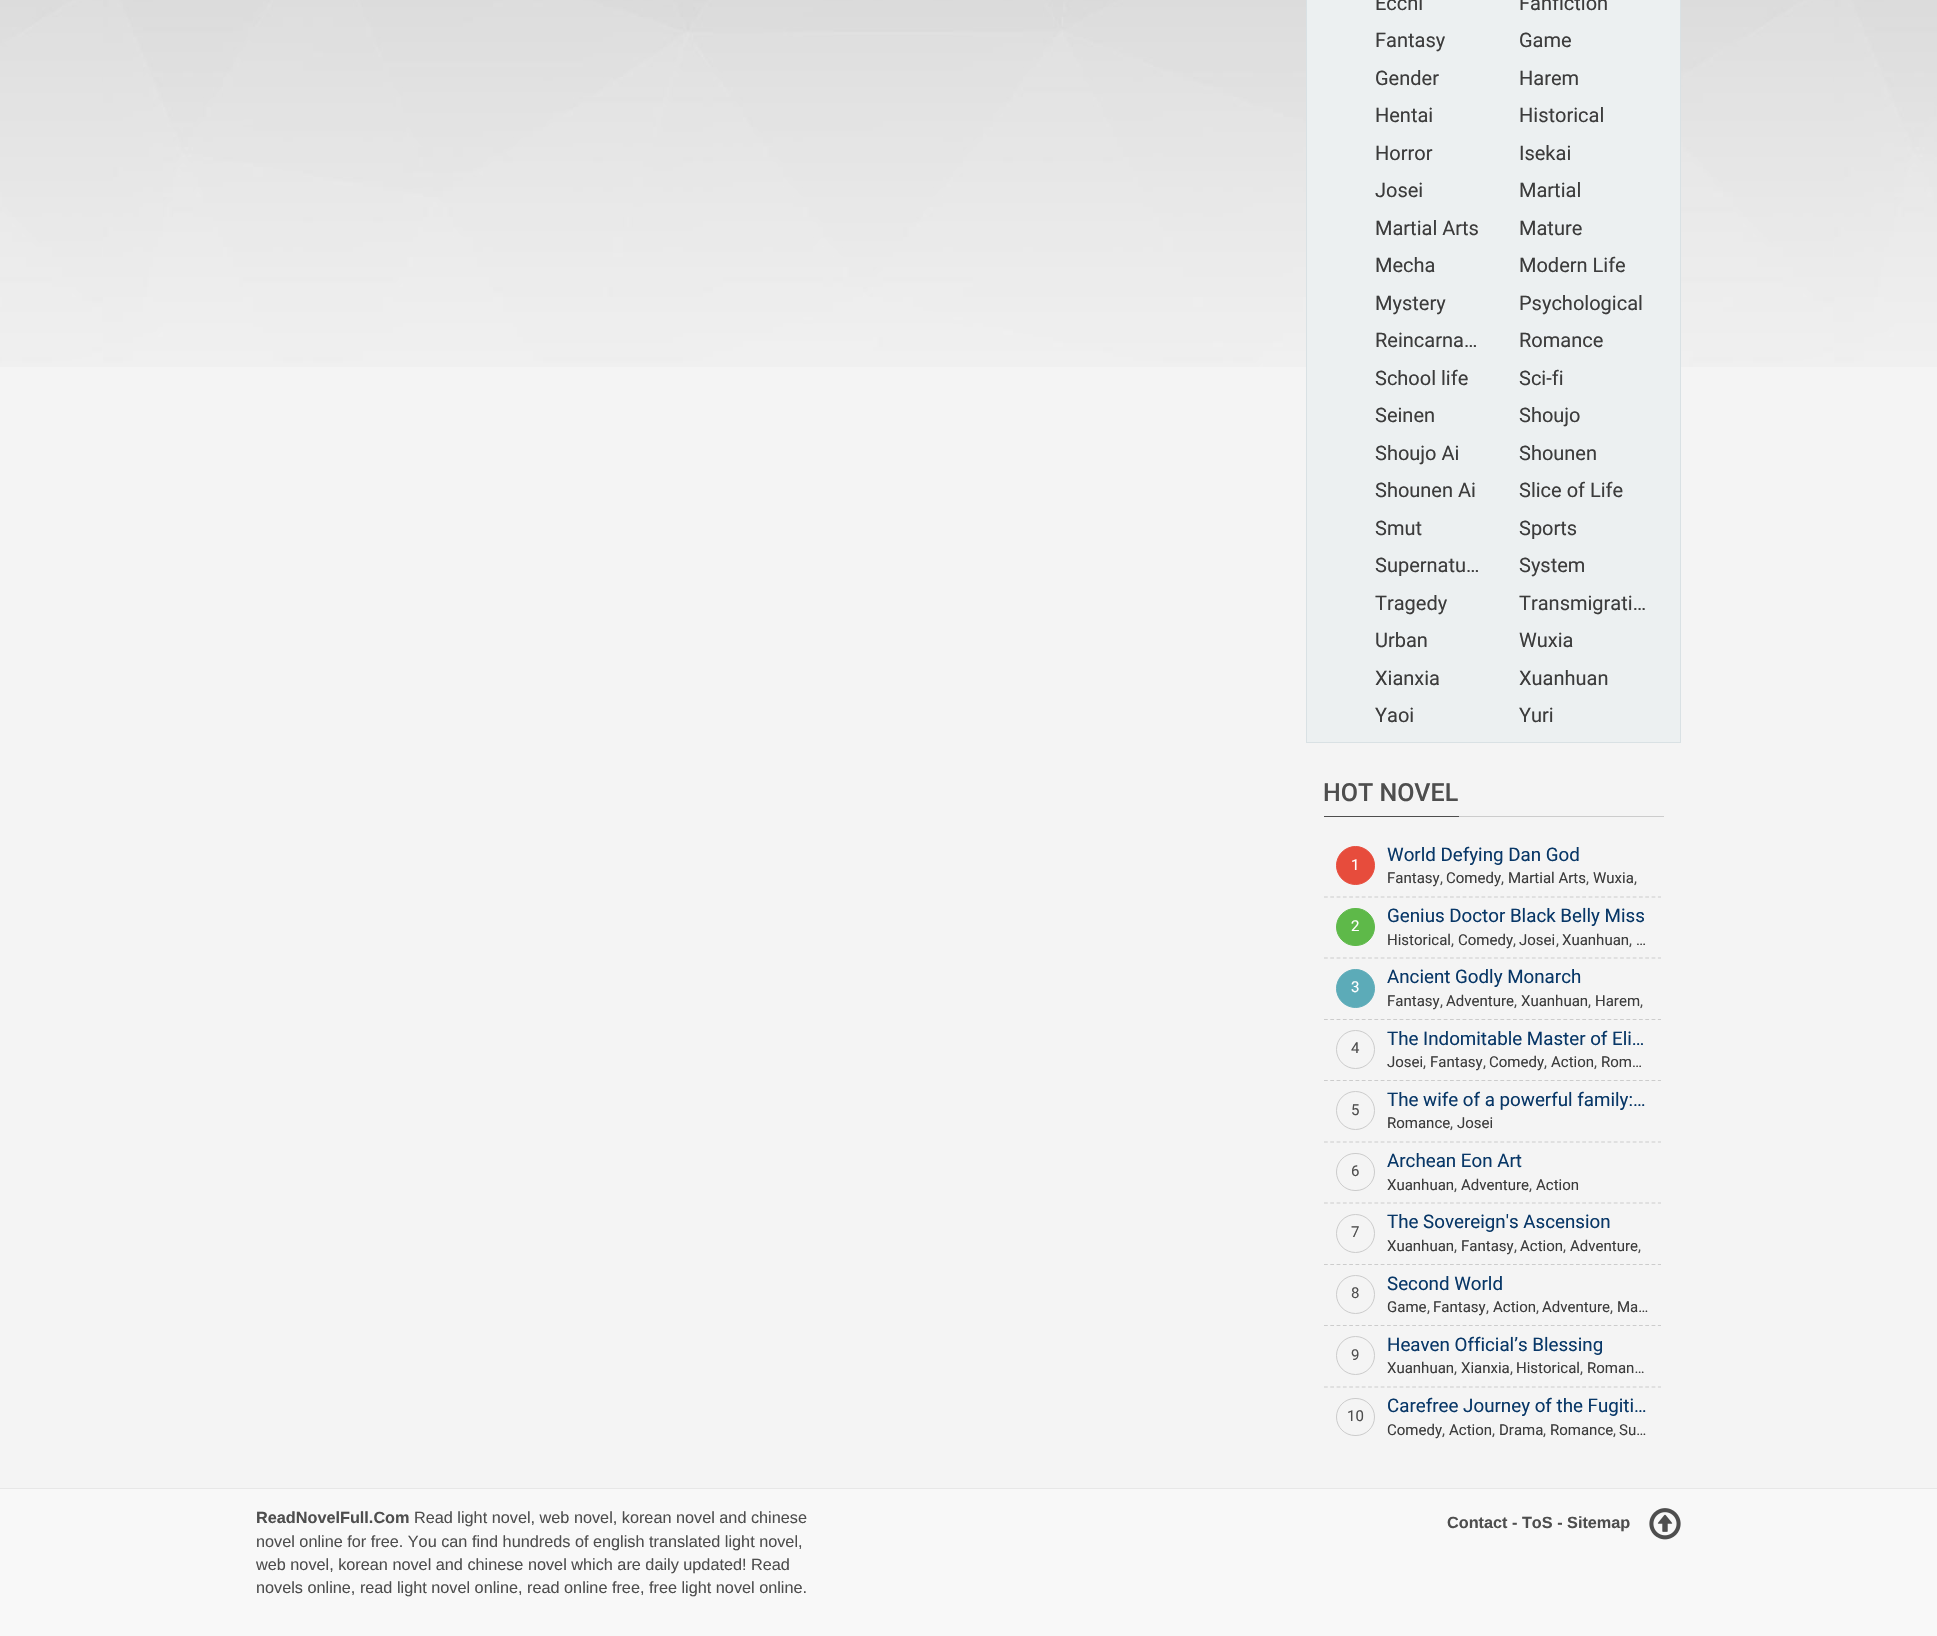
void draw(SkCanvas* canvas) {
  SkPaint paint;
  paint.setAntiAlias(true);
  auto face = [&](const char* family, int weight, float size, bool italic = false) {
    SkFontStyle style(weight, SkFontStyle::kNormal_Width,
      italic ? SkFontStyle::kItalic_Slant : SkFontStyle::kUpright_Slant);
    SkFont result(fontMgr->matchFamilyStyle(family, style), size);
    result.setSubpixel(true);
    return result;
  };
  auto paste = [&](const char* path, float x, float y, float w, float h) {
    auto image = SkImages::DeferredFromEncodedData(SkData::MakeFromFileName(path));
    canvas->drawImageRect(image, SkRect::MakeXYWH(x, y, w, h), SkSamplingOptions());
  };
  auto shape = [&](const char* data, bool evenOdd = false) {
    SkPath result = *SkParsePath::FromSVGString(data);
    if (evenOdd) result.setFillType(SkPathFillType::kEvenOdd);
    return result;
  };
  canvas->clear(0xfff4f4f4);
  paste("img/1.png", 0, 0, 1937, 367);
  paint.setColor(0xffecf0f1);
  canvas->drawRect(SkRect::MakeXYWH(1306.5f, -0.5f, 374, 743), paint);
  paint.setStroke(true);
  paint.setStrokeWidth(1);
  paint.setColor(0xffd9e1e4);
  canvas->drawRect(SkRect::MakeXYWH(1306.5f, -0.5f, 374, 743), paint);
  paint.setStroke(false);
  paint.setColor(0xffcccccc);
  canvas->drawRect(SkRect::MakeXYWH(1459, 816, 205, 1), paint);
  paint.setColor(0xff4e4e4e);
  canvas->drawRect(SkRect::MakeXYWH(1324, 816, 135, 1), paint);
  paint.setStroke(true);
  paint.setStrokeWidth(1.2f);
  paint.setColor(0xffcccccc);
  paint.setPathEffect(SkDashPathEffect::Make({{3.75f, 2.55f}}, 0));
  canvas->drawPath(shape("M1324 897H1661"), paint);
  paint.setPathEffect(nullptr);
  paint.setStroke(false);
  paint.setColor(0xffe74c3c);
  canvas->drawCircle(1355.5f, 865.5f, 19, paint);
  paint.setStroke(true);
  paint.setStrokeWidth(1);
  canvas->drawCircle(1355.5f, 865.5f, 19, paint);
  paint.setStrokeWidth(1.2f);
  paint.setColor(0xffcccccc);
  paint.setPathEffect(SkDashPathEffect::Make({{3.75f, 2.55f}}, 0));
  canvas->drawPath(shape("M1324 958H1661"), paint);
  paint.setPathEffect(nullptr);
  paint.setStroke(false);
  paint.setColor(0xff5eb949);
  canvas->drawRoundRect(SkRect::MakeXYWH(1336.5f, 908.5f, 38, 37), 18.5f, 18.5f, paint);
  paint.setStroke(true);
  paint.setStrokeWidth(1);
  canvas->drawRoundRect(SkRect::MakeXYWH(1336.5f, 908.5f, 38, 37), 18.5f, 18.5f, paint);
  paint.setStrokeWidth(1.2f);
  paint.setColor(0xffcccccc);
  paint.setPathEffect(SkDashPathEffect::Make({{3.75f, 2.55f}}, 0));
  canvas->drawPath(shape("M1324 1019.5H1661"), paint);
  paint.setPathEffect(nullptr);
  paint.setStroke(false);
  paint.setColor(0xff5cabb8);
  canvas->drawCircle(1355.5f, 988.5f, 19, paint);
  paint.setStroke(true);
  paint.setStrokeWidth(1);
  canvas->drawCircle(1355.5f, 988.5f, 19, paint);
  paint.setStrokeWidth(1.2f);
  paint.setColor(0xffcccccc);
  paint.setPathEffect(SkDashPathEffect::Make({{3.75f, 2.55f}}, 0));
  canvas->drawPath(shape("M1324 1080.5H1661"), paint);
  paint.setPathEffect(nullptr);
  paint.setStrokeWidth(1);
  paint.setColor(0xffcbcbcb);
  canvas->drawCircle(1355.5f, 1049.5f, 19, paint);
  paint.setStrokeWidth(1.2f);
  paint.setColor(0xffcccccc);
  paint.setPathEffect(SkDashPathEffect::Make({{3.75f, 2.55f}}, 0));
  canvas->drawPath(shape("M1324 1142H1661"), paint);
  paint.setPathEffect(nullptr);
  paint.setStrokeWidth(1);
  paint.setColor(0xffcbcbcb);
  canvas->drawCircle(1355.5f, 1110.5f, 19, paint);
  paint.setStrokeWidth(1.2f);
  paint.setColor(0xffcccccc);
  paint.setPathEffect(SkDashPathEffect::Make({{3.75f, 2.55f}}, 0));
  canvas->drawPath(shape("M1324 1203H1661"), paint);
  paint.setPathEffect(nullptr);
  paint.setStrokeWidth(1);
  paint.setColor(0xffcbcbcb);
  canvas->drawRoundRect(SkRect::MakeXYWH(1336.5f, 1153.5f, 38, 37), 18.5f, 18.5f, paint);
  paint.setStrokeWidth(1.2f);
  paint.setColor(0xffcccccc);
  paint.setPathEffect(SkDashPathEffect::Make({{3.75f, 2.55f}}, 0));
  canvas->drawPath(shape("M1324 1264.5H1661"), paint);
  paint.setPathEffect(nullptr);
  paint.setStrokeWidth(1);
  paint.setColor(0xffcbcbcb);
  canvas->drawCircle(1355.5f, 1233.5f, 19, paint);
  paint.setStrokeWidth(1.2f);
  paint.setColor(0xffcccccc);
  paint.setPathEffect(SkDashPathEffect::Make({{3.75f, 2.55f}}, 0));
  canvas->drawPath(shape("M1324 1325.5H1661"), paint);
  paint.setPathEffect(nullptr);
  paint.setStrokeWidth(1);
  paint.setColor(0xffcbcbcb);
  canvas->drawCircle(1355.5f, 1294.5f, 19, paint);
  paint.setStrokeWidth(1.2f);
  paint.setColor(0xffcccccc);
  paint.setPathEffect(SkDashPathEffect::Make({{3.75f, 2.55f}}, 0));
  canvas->drawPath(shape("M1324 1387H1661"), paint);
  paint.setPathEffect(nullptr);
  paint.setStrokeWidth(1);
  paint.setColor(0xffcbcbcb);
  canvas->drawCircle(1355.5f, 1355.5f, 19, paint);
  canvas->drawRoundRect(SkRect::MakeXYWH(1336.5f, 1398.5f, 38, 37), 18.5f, 18.5f, paint);
  paint.setStroke(false);
  paint.setColor(0xfff8f8f8);
  canvas->drawRect(SkRect::MakeXYWH(0, 1489, 1937, 147), paint);
  paint.setColor(0xffe7e7e7);
  canvas->drawRect(SkRect::MakeXYWH(0, 1488, 1937, 1), paint);
  paste("img/2.png", 1649, 1508, 32, 32);
  auto f0 = face("Roboto", 400, 20);
  paint.setColor(0xff3c3c3c);
  {
    const struct { const char* s; float x, y; } items[] = {
      {"Ecchi", 1375, 10},
      {"Fanfiction", 1519, 10},
      {"Fantasy", 1375, 47},
      {"Game", 1519, 47},
      {"Gender", 1375, 85},
      {"Harem", 1519, 85},
      {"Hentai", 1375, 122},
      {"Historical", 1519, 122},
      {"Horror", 1375, 160},
      {"Isekai", 1519, 160},
      {"Josei", 1375, 197},
      {"Martial", 1519, 197},
      {"Martial Arts", 1375, 235},
      {"Mature", 1519, 235},
      {"Mecha", 1375, 272},
      {"Modern Life", 1519, 272},
      {"Mystery", 1375, 310},
      {"Psychological", 1519, 310},
      {"Reincarna…", 1375, 347},
      {"Romance", 1519, 347},
      {"School life", 1375, 385},
      {"Sci-fi", 1519, 385},
      {"Seinen", 1375, 422},
      {"Shoujo", 1519, 422},
      {"Shoujo Ai", 1375, 460},
      {"Shounen", 1519, 460},
      {"Shounen Ai", 1375, 497},
      {"Slice of Life", 1519, 497},
      {"Smut", 1375, 535},
      {"Sports", 1519, 535},
      {"Supernatu…", 1375, 572},
      {"System", 1519, 572},
      {"Tragedy", 1375, 610},
      {"Transmigrati…", 1519, 610},
      {"Urban", 1375, 647},
      {"Wuxia", 1519, 647},
      {"Xianxia", 1375, 685},
      {"Xuanhuan", 1519, 685},
      {"Yaoi", 1375, 722},
      {"Yuri", 1519, 722},
    };
    for (auto [s, x, y] : items) {
      canvas->drawString(s, x, y, f0, paint);
    }
  }
  auto f1 = face("Roboto", 500, 25);
  paint.setColor(0xff4e4e4e);
  canvas->drawString("HOT NOVEL", 1323, 801, f1, paint);
  auto f2 = face("Roboto", 400, 15);
  paint.setColor(0xffffffff);
  canvas->drawString("1", 1351, 870, f2, paint);
  auto f3 = face("Roboto", 400, 18.75f);
  paint.setColor(0xff083767);
  canvas->drawString("World Defying Dan God", 1387, 861, f3, paint);
  paint.setColor(0xff3c3c3c);
  canvas->drawString("Fantasy", 1387, 883, f2, paint);
  paint.setColor(0xff4e4e4e);
  canvas->drawString(",", 1440, 883, f2, paint);
  paint.setColor(0xff3c3c3c);
  canvas->drawString("Comedy", 1446, 883, f2, paint);
  paint.setColor(0xff4e4e4e);
  canvas->drawString(",", 1501, 883, f2, paint);
  paint.setColor(0xff3c3c3c);
  canvas->drawString("Martial Arts", 1508, 883, f2, paint);
  paint.setColor(0xff4e4e4e);
  canvas->drawString(",", 1586, 883, f2, paint);
  paint.setColor(0xff3c3c3c);
  canvas->drawString("Wuxia", 1593, 883, f2, paint);
  paint.setColor(0xff4e4e4e);
  canvas->drawString(",", 1634, 883, f2, paint);
  paint.setColor(0xffffffff);
  canvas->drawString("2", 1351, 931, f2, paint);
  paint.setColor(0xff083767);
  canvas->drawString("Genius Doctor Black Belly Miss", 1387, 922, f3, paint);
  paint.setColor(0xff3c3c3c);
  canvas->drawString("Historical", 1387, 945, f2, paint);
  paint.setColor(0xff4e4e4e);
  canvas->drawString(",", 1451, 945, f2, paint);
  paint.setColor(0xff3c3c3c);
  canvas->drawString("Comedy", 1458, 945, f2, paint);
  paint.setColor(0xff4e4e4e);
  canvas->drawString(",", 1513, 945, f2, paint);
  paint.setColor(0xff3c3c3c);
  canvas->drawString("Josei", 1519, 945, f2, paint);
  paint.setColor(0xff4e4e4e);
  canvas->drawString(",", 1556, 945, f2, paint);
  paint.setColor(0xff3c3c3c);
  canvas->drawString("Xuanhuan", 1562, 945, f2, paint);
  paint.setColor(0xff4e4e4e);
  canvas->drawString(",", 1629, 945, f2, paint);
  paint.setColor(0xff3c3c3c);
  canvas->drawString("…", 1636, 945, f2, paint);
  paint.setColor(0xffffffff);
  canvas->drawString("3", 1351, 992, f2, paint);
  paint.setColor(0xff083767);
  canvas->drawString("Ancient Godly Monarch", 1387, 983, f3, paint);
  paint.setColor(0xff3c3c3c);
  canvas->drawString("Fantasy", 1387, 1006, f2, paint);
  paint.setColor(0xff4e4e4e);
  canvas->drawString(",", 1440, 1006, f2, paint);
  paint.setColor(0xff3c3c3c);
  canvas->drawString("Adventure", 1446, 1006, f2, paint);
  paint.setColor(0xff4e4e4e);
  canvas->drawString(",", 1514, 1006, f2, paint);
  paint.setColor(0xff3c3c3c);
  canvas->drawString("Xuanhuan", 1521, 1006, f2, paint);
  paint.setColor(0xff4e4e4e);
  canvas->drawString(",", 1588, 1006, f2, paint);
  paint.setColor(0xff3c3c3c);
  canvas->drawString("Harem", 1595, 1006, f2, paint);
  paint.setColor(0xff4e4e4e);
  canvas->drawString(",", 1640, 1006, f2, paint);
  paint.setColor(0xff083767);
  canvas->drawString("The Indomitable Master of Eli…", 1387, 1045, f3, paint);
  paint.setColor(0xff4e4e4e);
  canvas->drawString("4", 1351, 1053, f2, paint);
  paint.setColor(0xff3c3c3c);
  canvas->drawString("Josei", 1387, 1067, f2, paint);
  paint.setColor(0xff4e4e4e);
  canvas->drawString(",", 1423, 1067, f2, paint);
  paint.setColor(0xff3c3c3c);
  canvas->drawString("Fantasy", 1430, 1067, f2, paint);
  paint.setColor(0xff4e4e4e);
  canvas->drawString(",", 1483, 1067, f2, paint);
  paint.setColor(0xff3c3c3c);
  canvas->drawString("Comedy", 1489, 1067, f2, paint);
  paint.setColor(0xff4e4e4e);
  canvas->drawString(",", 1544, 1067, f2, paint);
  paint.setColor(0xff3c3c3c);
  canvas->drawString("Action", 1551, 1067, f2, paint);
  paint.setColor(0xff4e4e4e);
  canvas->drawString(",", 1594, 1067, f2, paint);
  paint.setColor(0xff3c3c3c);
  canvas->drawString("Rom…", 1601, 1067, f2, paint);
  paint.setColor(0xff4e4e4e);
  canvas->drawString("5", 1351, 1115, f2, paint);
  paint.setColor(0xff083767);
  canvas->drawString("The wife of a powerful family:…", 1387, 1106, f3, paint);
  paint.setColor(0xff3c3c3c);
  canvas->drawString("Romance", 1387, 1128, f2, paint);
  paint.setColor(0xff4e4e4e);
  canvas->drawString(",", 1450, 1128, f2, paint);
  paint.setColor(0xff3c3c3c);
  canvas->drawString("Josei", 1457, 1128, f2, paint);
  paint.setColor(0xff083767);
  canvas->drawString("Archean Eon Art", 1387, 1167, f3, paint);
  paint.setColor(0xff4e4e4e);
  canvas->drawString("6", 1351, 1176, f2, paint);
  paint.setColor(0xff3c3c3c);
  canvas->drawString("Xuanhuan", 1387, 1190, f2, paint);
  paint.setColor(0xff4e4e4e);
  canvas->drawString(",", 1454, 1190, f2, paint);
  paint.setColor(0xff3c3c3c);
  canvas->drawString("Adventure", 1461, 1190, f2, paint);
  paint.setColor(0xff4e4e4e);
  canvas->drawString(",", 1529, 1190, f2, paint);
  paint.setColor(0xff3c3c3c);
  canvas->drawString("Action", 1536, 1190, f2, paint);
  paint.setColor(0xff4e4e4e);
  canvas->drawString("7", 1351, 1237, f2, paint);
  paint.setColor(0xff083767);
  canvas->drawString("The Sovereign's Ascension", 1387, 1228, f3, paint);
  paint.setColor(0xff3c3c3c);
  canvas->drawString("Xuanhuan", 1387, 1251, f2, paint);
  paint.setColor(0xff4e4e4e);
  canvas->drawString(",", 1454, 1251, f2, paint);
  paint.setColor(0xff3c3c3c);
  canvas->drawString("Fantasy", 1461, 1251, f2, paint);
  paint.setColor(0xff4e4e4e);
  canvas->drawString(",", 1514, 1251, f2, paint);
  paint.setColor(0xff3c3c3c);
  canvas->drawString("Action", 1520, 1251, f2, paint);
  paint.setColor(0xff4e4e4e);
  canvas->drawString(",", 1563, 1251, f2, paint);
  paint.setColor(0xff3c3c3c);
  canvas->drawString("Adventure", 1570, 1251, f2, paint);
  paint.setColor(0xff4e4e4e);
  canvas->drawString(",", 1638, 1251, f2, paint);
  paint.setColor(0xff083767);
  canvas->drawString("Second World", 1387, 1290, f3, paint);
  paint.setColor(0xff4e4e4e);
  canvas->drawString("8", 1351, 1298, f2, paint);
  paint.setColor(0xff3c3c3c);
  canvas->drawString("Game", 1387, 1312, f2, paint);
  paint.setColor(0xff4e4e4e);
  canvas->drawString(",", 1427, 1312, f2, paint);
  paint.setColor(0xff3c3c3c);
  canvas->drawString("Fantasy", 1433, 1312, f2, paint);
  paint.setColor(0xff4e4e4e);
  canvas->drawString(",", 1486, 1312, f2, paint);
  paint.setColor(0xff3c3c3c);
  canvas->drawString("Action", 1493, 1312, f2, paint);
  paint.setColor(0xff4e4e4e);
  canvas->drawString(",", 1536, 1312, f2, paint);
  paint.setColor(0xff3c3c3c);
  canvas->drawString("Adventure", 1542, 1312, f2, paint);
  paint.setColor(0xff4e4e4e);
  canvas->drawString(",", 1610, 1312, f2, paint);
  paint.setColor(0xff3c3c3c);
  canvas->drawString("Ma…", 1617, 1312, f2, paint);
  paint.setColor(0xff4e4e4e);
  canvas->drawString("9", 1351, 1360, f2, paint);
  paint.setColor(0xff083767);
  canvas->drawString("Heaven Official’s Blessing", 1387, 1351, f3, paint);
  paint.setColor(0xff3c3c3c);
  canvas->drawString("Xuanhuan", 1387, 1373, f2, paint);
  paint.setColor(0xff4e4e4e);
  canvas->drawString(",", 1454, 1373, f2, paint);
  paint.setColor(0xff3c3c3c);
  canvas->drawString("Xianxia", 1461, 1373, f2, paint);
  paint.setColor(0xff4e4e4e);
  canvas->drawString(",", 1510, 1373, f2, paint);
  paint.setColor(0xff3c3c3c);
  canvas->drawString("Historical", 1516, 1373, f2, paint);
  paint.setColor(0xff4e4e4e);
  canvas->drawString(",", 1580, 1373, f2, paint);
  paint.setColor(0xff3c3c3c);
  canvas->drawString("Roman…", 1587, 1373, f2, paint);
  paint.setColor(0xff4e4e4e);
  canvas->drawString("10", 1347, 1421, f2, paint);
  paint.setColor(0xff083767);
  canvas->drawString("Carefree Journey of the Fugiti…", 1387, 1412, f3, paint);
  paint.setColor(0xff3c3c3c);
  canvas->drawString("Comedy", 1387, 1435, f2, paint);
  paint.setColor(0xff4e4e4e);
  canvas->drawString(",", 1442, 1435, f2, paint);
  paint.setColor(0xff3c3c3c);
  canvas->drawString("Action", 1449, 1435, f2, paint);
  paint.setColor(0xff4e4e4e);
  canvas->drawString(",", 1492, 1435, f2, paint);
  paint.setColor(0xff3c3c3c);
  canvas->drawString("Drama", 1499, 1435, f2, paint);
  paint.setColor(0xff4e4e4e);
  canvas->drawString(",", 1543, 1435, f2, paint);
  paint.setColor(0xff3c3c3c);
  canvas->drawString("Romance", 1550, 1435, f2, paint);
  paint.setColor(0xff4e4e4e);
  canvas->drawString(",", 1613, 1435, f2, paint);
  paint.setColor(0xff3c3c3c);
  canvas->drawString("Su…", 1619, 1435, f2, paint);
  auto f4 = face("Liberation Sans", 700, 16.25f);
  paint.setColor(0xff4e4e4e);
  canvas->drawString("ReadNovelFull.Com", 256, 1523, f4, paint);
  auto f5 = face("Liberation Sans", 400, 16.25f);
  {
    const struct { const char* s; float x, y; } items[] = {
      {"Read light novel, web novel, korean novel and chinese", 414, 1523},
      {"novel online for free. You can find hundreds of english translated light novel,", 256, 1547},
      {"web novel, korean novel and chinese novel which are daily updated! Read", 256, 1570},
      {"novels online, read light novel online, read online free, free light novel online.", 256, 1593},
    };
    for (auto [s, x, y] : items) {
      canvas->drawString(s, x, y, f5, paint);
    }
  }
  canvas->drawString("Contact - ToS - Sitemap", 1447, 1528, f4, paint);
}
